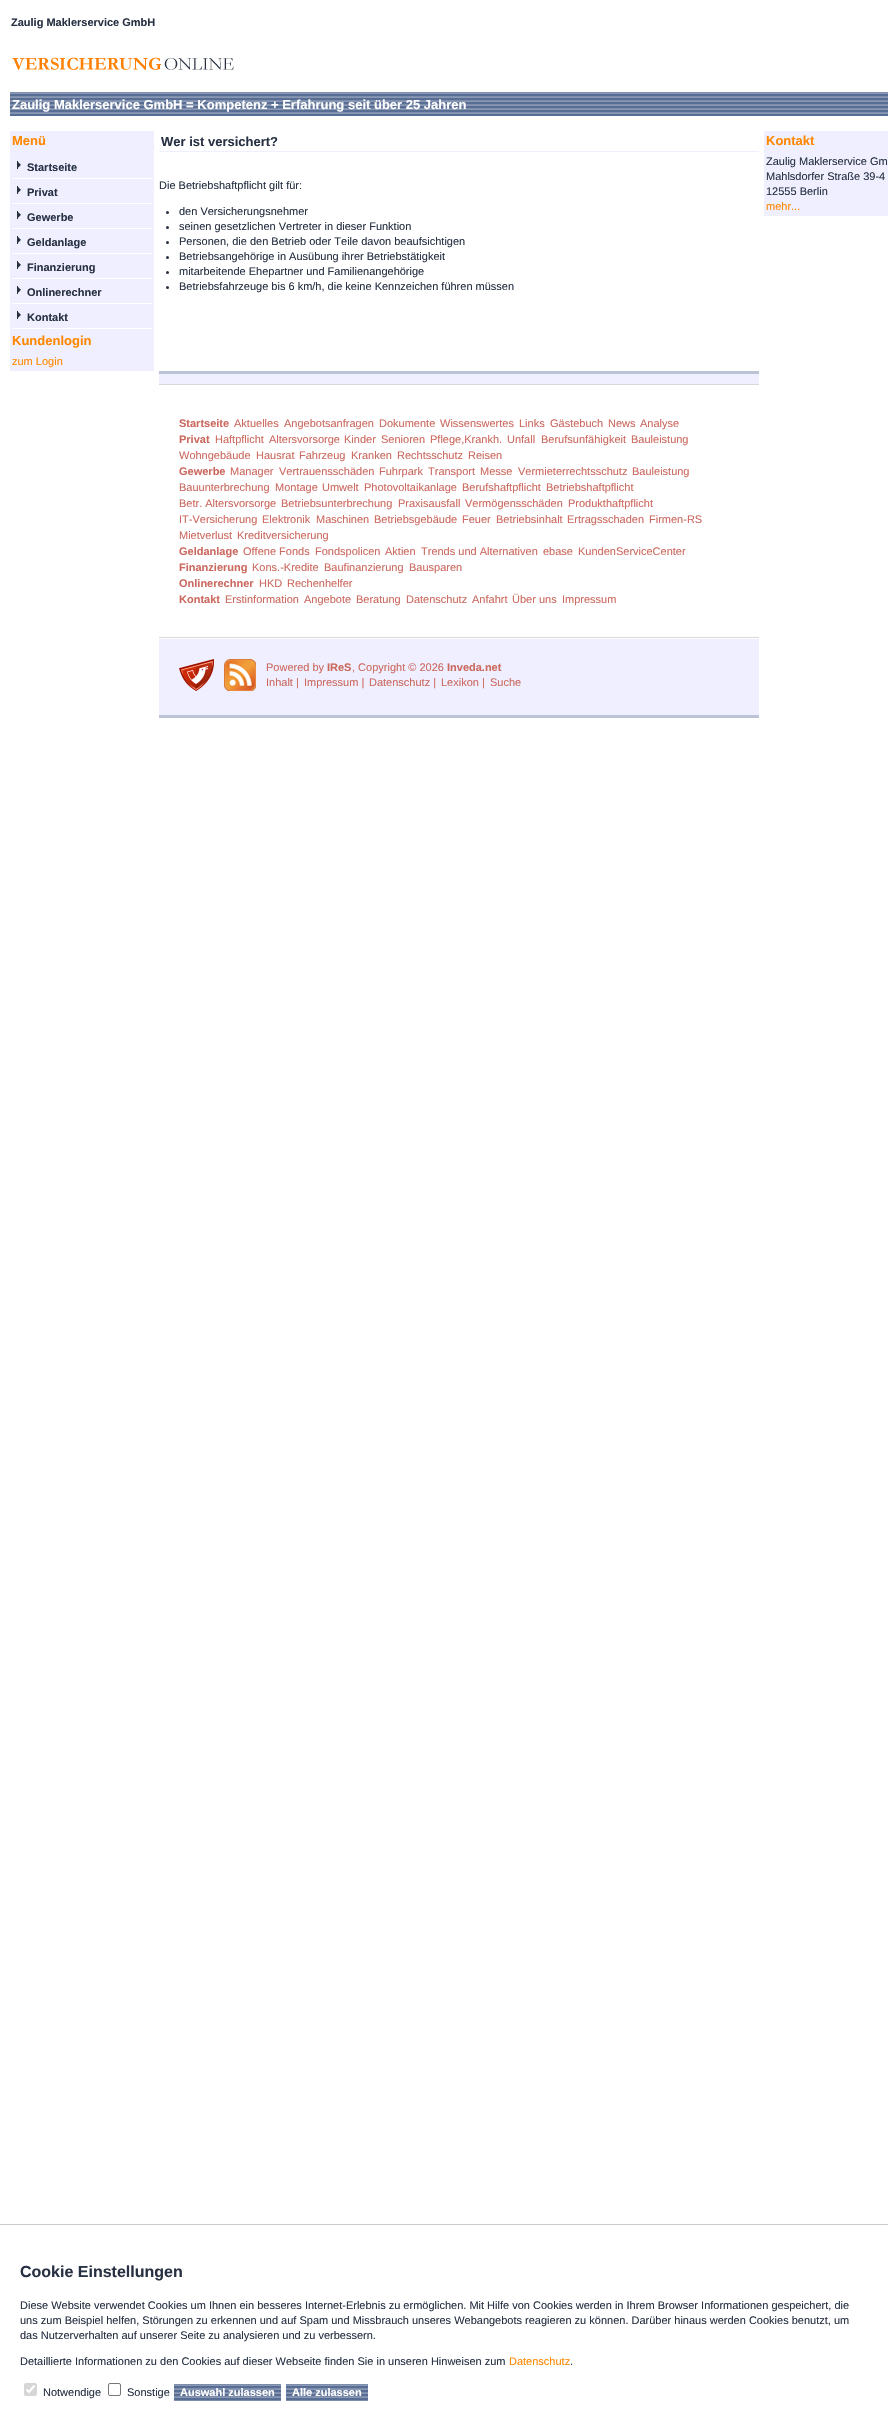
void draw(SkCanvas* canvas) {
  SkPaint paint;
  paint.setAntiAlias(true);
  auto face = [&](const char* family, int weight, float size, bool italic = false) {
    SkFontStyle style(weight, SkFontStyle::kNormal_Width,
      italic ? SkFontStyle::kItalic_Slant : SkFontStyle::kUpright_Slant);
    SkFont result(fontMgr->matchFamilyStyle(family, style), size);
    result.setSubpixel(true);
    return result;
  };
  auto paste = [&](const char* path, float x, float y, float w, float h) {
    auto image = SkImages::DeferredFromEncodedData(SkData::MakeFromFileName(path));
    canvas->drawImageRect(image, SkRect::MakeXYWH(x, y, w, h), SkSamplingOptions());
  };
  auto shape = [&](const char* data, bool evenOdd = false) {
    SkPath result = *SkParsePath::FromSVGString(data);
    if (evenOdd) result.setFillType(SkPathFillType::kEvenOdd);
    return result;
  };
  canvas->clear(0xffffffff);
  paste("img/1.png", 12, 57, 222, 13);
  paste("img/2.png", 10, 92, 878, 24);
  paint.setColor(0xffefefff);
  canvas->drawRect(SkRect::MakeXYWH(10, 131, 144, 240), paint);
  paint.setColor(0xffffffff);
  canvas->drawRect(SkRect::MakeXYWH(12, 178, 140, 1), paint);
  paste("img/3.png", 17, 161, 4, 8);
  canvas->drawRect(SkRect::MakeXYWH(12, 203, 140, 1), paint);
  paste("img/3.png", 17, 186, 4, 8);
  canvas->drawRect(SkRect::MakeXYWH(12, 228, 140, 1), paint);
  paste("img/3.png", 17, 211, 4, 8);
  canvas->drawRect(SkRect::MakeXYWH(12, 253, 140, 1), paint);
  paste("img/3.png", 17, 236, 4, 8);
  canvas->drawRect(SkRect::MakeXYWH(12, 278, 140, 1), paint);
  paste("img/3.png", 17, 261, 4, 8);
  canvas->drawRect(SkRect::MakeXYWH(12, 303, 140, 1), paint);
  paste("img/3.png", 17, 286, 4, 8);
  canvas->drawRect(SkRect::MakeXYWH(12, 328, 140, 1), paint);
  paste("img/3.png", 17, 311, 4, 8);
  paint.setColor(0xffefefff);
  canvas->drawRect(SkRect::MakeXYWH(159, 151, 600, 1), paint);
  paint.setColor(0xff273143);
  canvas->drawCircle(167.5f, 212.5f, 1.5f, paint);
  canvas->drawCircle(167.5f, 227.5f, 1.5f, paint);
  canvas->drawCircle(167.5f, 242.5f, 1.5f, paint);
  canvas->drawCircle(167.5f, 257.5f, 1.5f, paint);
  canvas->drawCircle(167.5f, 272.5f, 1.5f, paint);
  canvas->drawCircle(167.5f, 287.5f, 1.5f, paint);
  {
    const struct { float x, y, w, h; SkColor color; } items[] = {
      {764, 131, 124, 85, 0xffefefff},
      {159, 371, 600, 3, 0xffbac4d6},
      {159, 374, 600, 10, 0xffefefff},
      {159, 384, 600, 1, 0xffd8d8d8},
      {159, 637, 600, 1, 0xffd8d8d8},
      {159, 639, 600, 76, 0xffefefff},
      {159, 715, 600, 3, 0xffbac4d6},
    };
    for (auto [x, y, w, h, color] : items) {
      paint.setColor(color);
      canvas->drawRect(SkRect::MakeXYWH(x, y, w, h), paint);
    }
  }
  paste("img/4.png", 179, 659, 35, 32);
  paste("img/5.png", 224, 659, 32, 32);
  paint.setStroke(true);
  paint.setStrokeWidth(1);
  paint.setColor(0xffcccccc);
  canvas->drawRect(SkRect::MakeXYWH(-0.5f, 2224.5f, 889, 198), paint);
  paint.setStroke(false);
  paint.setColor(0xffd6d6d6);
  canvas->drawRoundRect(SkRect::MakeXYWH(24, 2383, 13, 13), 2, 2, paint);
  paint.setStroke(true);
  paint.setStrokeWidth(2.1f);
  paint.setColor(0xffffffff);
  canvas->drawPath(shape("M26.5 2389.5L29 2392L34.5 2385.5"), paint);
  paint.setStrokeWidth(1);
  paint.setColor(0xff767676);
  canvas->drawRoundRect(SkRect::MakeXYWH(108.5f, 2383.5f, 12, 12), 1.5f, 1.5f, paint);
  paste("img/6.png", 174, 2384, 107, 17);
  paste("img/7.png", 286, 2384, 82, 17);
  auto f0 = face("Liberation Sans", 700, 11);
  paint.setStroke(false);
  paint.setColor(0xff273143);
  canvas->drawString("Zaulig Maklerservice GmbH", 11, 26, f0, paint);
  auto f1 = face("Liberation Sans", 700, 13);
  paint.setColor(0xffffffff);
  canvas->drawString("Zaulig Maklerservice GmbH = Kompetenz + Erfahrung seit über 25 Jahren", 12, 109, f1, paint);
  paint.setColor(0xffff8800);
  canvas->drawString("Menü", 12, 145, f1, paint);
  paint.setColor(0xff273143);
  {
    const struct { const char* s; float x, y; } items[] = {
      {"Startseite", 27, 171},
      {"Privat", 27, 196},
      {"Gewerbe", 27, 221},
      {"Geldanlage", 27, 246},
      {"Finanzierung", 27, 271},
      {"Onlinerechner", 27, 296},
      {"Kontakt", 27, 321},
    };
    for (auto [s, x, y] : items) {
      canvas->drawString(s, x, y, f0, paint);
    }
  }
  paint.setColor(0xffff8800);
  canvas->drawString("Kundenlogin", 12, 345, f1, paint);
  auto f2 = face("Liberation Sans", 400, 11);
  canvas->drawString("zum Login", 12, 365, f2, paint);
  paint.setColor(0xff273143);
  canvas->drawString("Wer ist versichert?", 161, 146, f1, paint);
  {
    const struct { const char* s; float x, y; } items[] = {
      {"Die Betriebshaftpflicht gilt für:", 159, 189},
      {"den Versicherungsnehmer", 179, 215},
      {"seinen gesetzlichen Vertreter in dieser Funktion", 179, 230},
      {"Personen, die den Betrieb oder Teile davon beaufsichtigen", 179, 245},
      {"Betriebsangehörige in Ausübung ihrer Betriebstätigkeit", 179, 260},
      {"mitarbeitende Ehepartner und Familienangehörige", 179, 275},
      {"Betriebsfahrzeuge bis 6 km/h, die keine Kennzeichen führen müssen", 179, 290},
    };
    for (auto [s, x, y] : items) {
      canvas->drawString(s, x, y, f2, paint);
    }
  }
  paint.setColor(0xffff8800);
  canvas->drawString("Kontakt", 766, 145, f1, paint);
  paint.setColor(0xff273143);
  {
    const struct { const char* s; float x, y; } items[] = {
      {"Zaulig Maklerservice Gm", 766, 165},
      {"Mahlsdorfer Straße 39-4", 766, 180},
      {"12555 Berlin", 766, 195},
    };
    for (auto [s, x, y] : items) {
      canvas->drawString(s, x, y, f2, paint);
    }
  }
  paint.setColor(0xffff8800);
  canvas->drawString("mehr...", 766, 210, f2, paint);
  paint.setColor(0xffcc695f);
  canvas->drawString("Startseite", 179, 427, f0, paint);
  {
    const struct { const char* s; float x, y; } items[] = {
      {"Aktuelles", 234, 427},
      {"Angebotsanfragen", 284, 427},
      {"Dokumente", 379, 427},
      {"Wissenswertes", 440, 427},
      {"Links", 519, 427},
      {"Gästebuch", 550, 427},
      {"News", 608, 427},
      {"Analyse", 640, 427},
    };
    for (auto [s, x, y] : items) {
      canvas->drawString(s, x, y, f2, paint);
    }
  }
  canvas->drawString("Privat", 179, 443, f0, paint);
  {
    const struct { const char* s; float x, y; } items[] = {
      {"Haftpflicht", 215, 443},
      {"Altersvorsorge", 269, 443},
      {"Kinder", 344, 443},
      {"Senioren", 381, 443},
      {"Pflege,Krankh.", 430, 443},
      {"Unfall", 507, 443},
      {"Berufsunfähigkeit", 541, 443},
      {"Bauleistung", 631, 443},
      {"Wohngebäude", 179, 459},
      {"Hausrat", 256, 459},
      {"Fahrzeug", 299, 459},
      {"Kranken", 351, 459},
      {"Rechtsschutz", 397, 459},
      {"Reisen", 468, 459},
    };
    for (auto [s, x, y] : items) {
      canvas->drawString(s, x, y, f2, paint);
    }
  }
  canvas->drawString("Gewerbe", 179, 475, f0, paint);
  {
    const struct { const char* s; float x, y; } items[] = {
      {"Manager", 230, 475},
      {"Vertrauensschäden", 279, 475},
      {"Fuhrpark", 379, 475},
      {"Transport", 428, 475},
      {"Messe", 480, 475},
      {"Vermieterrechtsschutz", 518, 475},
      {"Bauleistung", 632, 475},
      {"Bauunterbrechung", 179, 491},
      {"Montage", 275, 491},
      {"Umwelt", 322, 491},
      {"Photovoltaikanlage", 364, 491},
      {"Berufshaftpflicht", 462, 491},
      {"Betriebshaftpflicht", 546, 491},
      {"Betr. Altersvorsorge", 179, 507},
      {"Betriebsunterbrechung", 281, 507},
      {"Praxisausfall", 398, 507},
      {"Vermögensschäden", 465, 507},
      {"Produkthaftpflicht", 568, 507},
      {"IT-Versicherung", 179, 523},
      {"Elektronik", 262, 523},
      {"Maschinen", 316, 523},
      {"Betriebsgebäude", 374, 523},
      {"Feuer", 462, 523},
      {"Betriebsinhalt", 496, 523},
      {"Ertragsschaden", 567, 523},
      {"Firmen-RS", 649, 523},
      {"Mietverlust", 179, 539},
      {"Kreditversicherung", 237, 539},
    };
    for (auto [s, x, y] : items) {
      canvas->drawString(s, x, y, f2, paint);
    }
  }
  canvas->drawString("Geldanlage", 179, 555, f0, paint);
  {
    const struct { const char* s; float x, y; } items[] = {
      {"Offene Fonds", 243, 555},
      {"Fondspolicen", 315, 555},
      {"Aktien", 385, 555},
      {"Trends und Alternativen", 421, 555},
      {"ebase", 543, 555},
      {"KundenServiceCenter", 578, 555},
    };
    for (auto [s, x, y] : items) {
      canvas->drawString(s, x, y, f2, paint);
    }
  }
  canvas->drawString("Finanzierung", 179, 571, f0, paint);
  {
    const struct { const char* s; float x, y; } items[] = {
      {"Kons.-Kredite", 252, 571},
      {"Baufinanzierung", 324, 571},
      {"Bausparen", 409, 571},
    };
    for (auto [s, x, y] : items) {
      canvas->drawString(s, x, y, f2, paint);
    }
  }
  canvas->drawString("Onlinerechner", 179, 587, f0, paint);
  canvas->drawString("HKD", 259, 587, f2, paint);
  canvas->drawString("Rechenhelfer", 287, 587, f2, paint);
  canvas->drawString("Kontakt", 179, 603, f0, paint);
  {
    const struct { const char* s; float x, y; } items[] = {
      {"Erstinformation", 225, 603},
      {"Angebote", 304, 603},
      {"Beratung", 356, 603},
      {"Datenschutz", 406, 603},
      {"Anfahrt", 472, 603},
      {"Über uns", 512, 603},
      {"Impressum", 562, 603},
      {"Powered by", 266, 671},
    };
    for (auto [s, x, y] : items) {
      canvas->drawString(s, x, y, f2, paint);
    }
  }
  canvas->drawString("IReS", 327, 671, f0, paint);
  canvas->drawString(", Copyright © 2026", 352, 671, f2, paint);
  canvas->drawString("Inveda.net", 447, 671, f0, paint);
  {
    const struct { const char* s; float x, y; } items[] = {
      {"Inhalt |", 266, 686},
      {"Impressum |", 304, 686},
      {"Datenschutz |", 369, 686},
      {"Lexikon |", 441, 686},
      {"Suche", 490, 686},
    };
    for (auto [s, x, y] : items) {
      canvas->drawString(s, x, y, f2, paint);
    }
  }
  auto f3 = face("Liberation Sans", 700, 16);
  paint.setColor(0xff273143);
  canvas->drawString("Cookie Einstellungen", 20, 2277, f3, paint);
  {
    const struct { const char* s; float x, y; } items[] = {
      {"Diese Website verwendet Cookies um Ihnen ein besseres Internet-Erlebnis zu ermöglichen. Mit Hilfe von Cookies werden in Ihrem Browser Informationen gespeichert, die", 20, 2309},
      {"uns zum Beispiel helfen, Störungen zu erkennen und auf Spam und Missbrauch unseres Webangebots reagieren zu können. Darüber hinaus werden Cookies benutzt, um", 20, 2324},
      {"das Nutzerverhalten auf unserer Seite zu analysieren und zu verbessern.", 20, 2339},
      {"Detaillierte Informationen zu den Cookies auf dieser Webseite finden Sie in unseren Hinweisen zum", 20, 2365},
    };
    for (auto [s, x, y] : items) {
      canvas->drawString(s, x, y, f2, paint);
    }
  }
  paint.setColor(0xffff8800);
  canvas->drawString("Datenschutz", 509, 2365, f2, paint);
  paint.setColor(0xff273143);
  {
    const struct { const char* s; float x, y; } items[] = {
      {".", 570, 2365},
      {"Notwendige", 43, 2396},
      {"Sonstige", 127, 2396},
    };
    for (auto [s, x, y] : items) {
      canvas->drawString(s, x, y, f2, paint);
    }
  }
  paint.setColor(0xffffffff);
  canvas->drawString("Auswahl zulassen", 180, 2396, f0, paint);
  canvas->drawString("Alle zulassen", 292, 2396, f0, paint);
}
